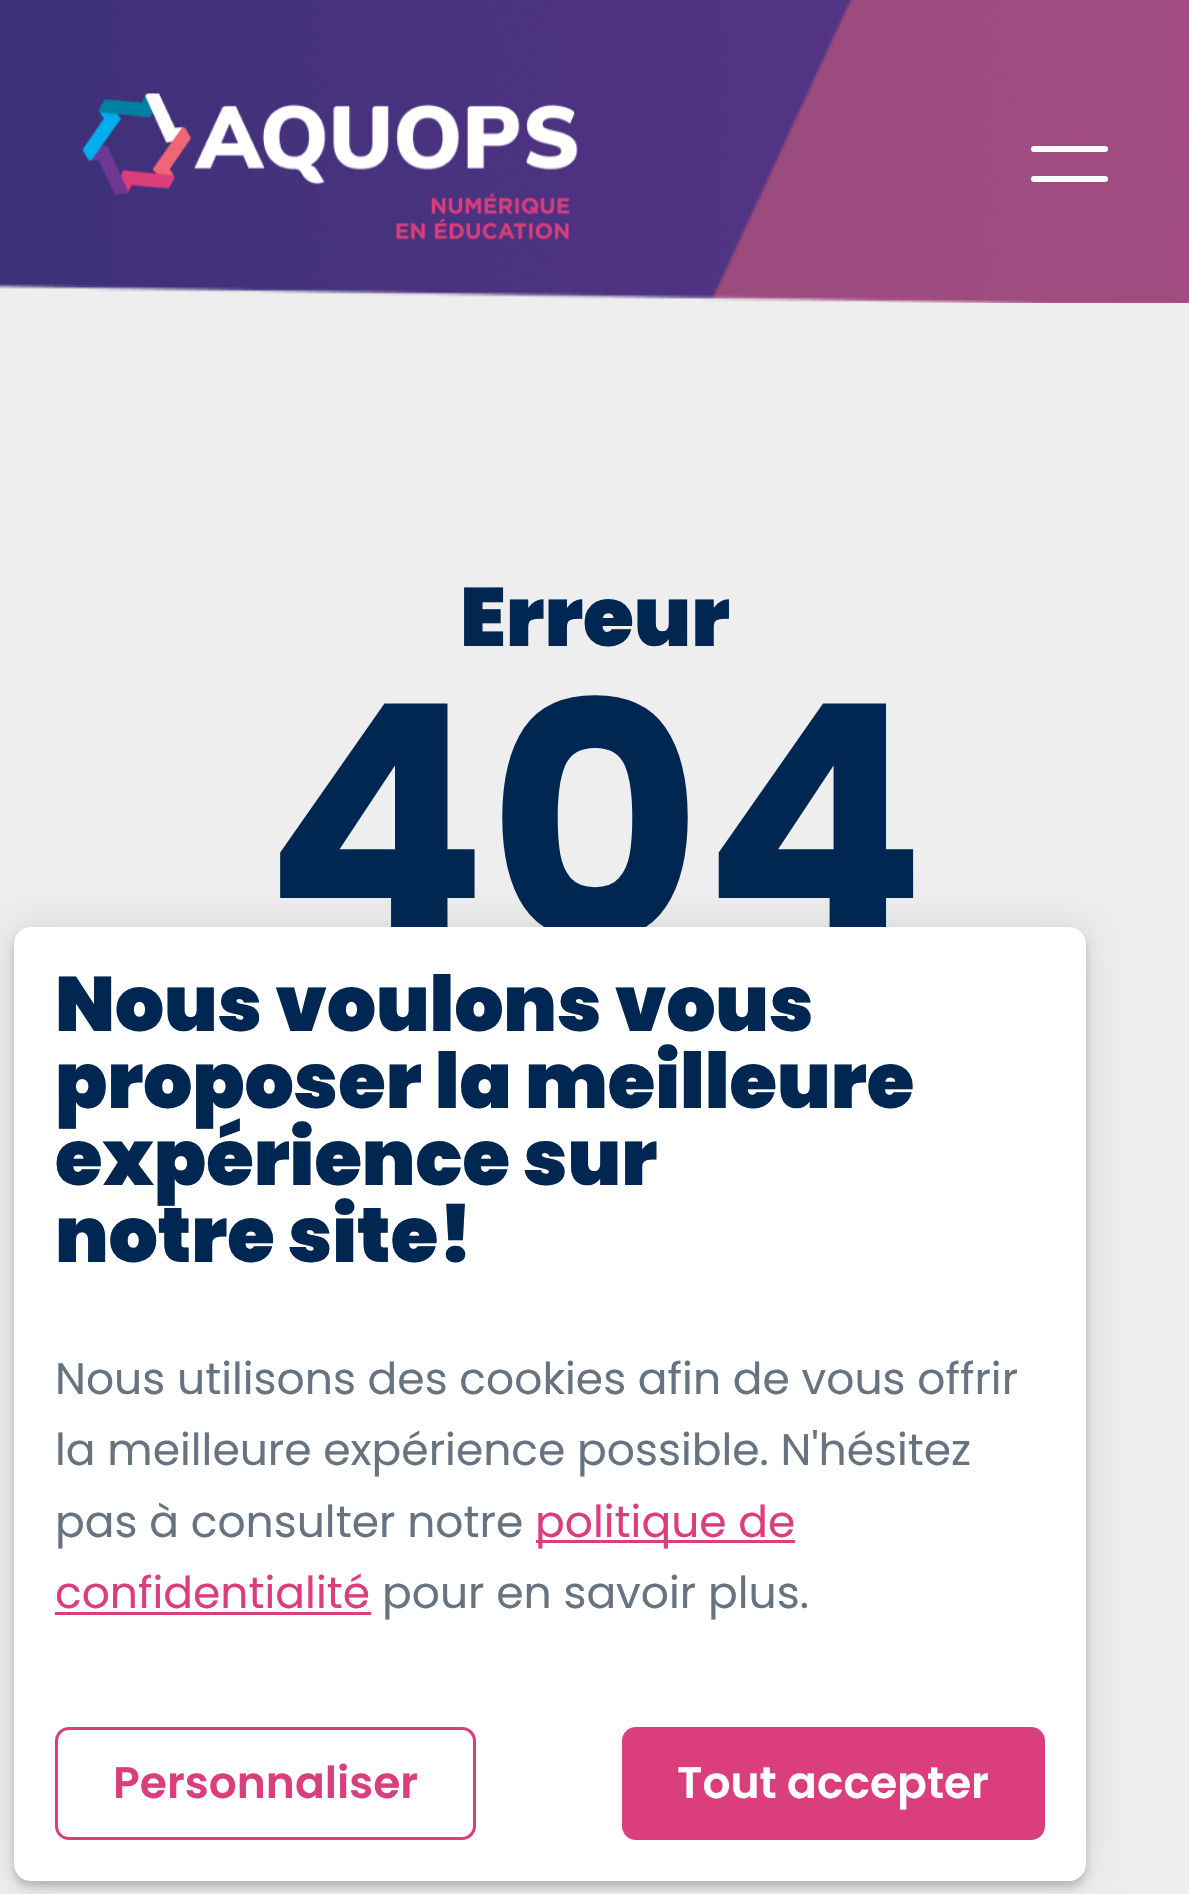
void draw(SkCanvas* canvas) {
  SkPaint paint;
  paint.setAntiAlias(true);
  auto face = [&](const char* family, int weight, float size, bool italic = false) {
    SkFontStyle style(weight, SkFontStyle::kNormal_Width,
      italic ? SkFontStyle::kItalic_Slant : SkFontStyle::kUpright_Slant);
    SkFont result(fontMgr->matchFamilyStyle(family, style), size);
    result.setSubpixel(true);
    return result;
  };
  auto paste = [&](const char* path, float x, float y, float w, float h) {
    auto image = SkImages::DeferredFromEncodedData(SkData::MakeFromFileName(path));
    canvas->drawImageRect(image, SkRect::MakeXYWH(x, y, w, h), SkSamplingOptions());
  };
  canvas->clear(0xffeeeeee);
  paste("img/1.png", 0, 0, 1189, 303);
  paste("img/2.png", 82, 93, 496, 147);
  paint.setColor(0xffffffff);
  canvas->drawRoundRect(SkRect::MakeXYWH(1031, 146, 77, 6), 3, 3, paint);
  canvas->drawRoundRect(SkRect::MakeXYWH(1031, 176, 77, 6), 3, 3, paint);
  paint.setColor(0x1a000000);
  paint.setMaskFilter(SkMaskFilter::MakeBlur(kNormal_SkBlurStyle, 20.5f));
  canvas->drawRoundRect(SkRect::MakeXYWH(14, 927, 1072, 954), 17, 17, paint);
  paint.setMaskFilter(nullptr);
  paint.setColor(0x33000000);
  paint.setMaskFilter(SkMaskFilter::MakeBlur(kNormal_SkBlurStyle, 4));
  canvas->drawRoundRect(SkRect::MakeXYWH(14, 932, 1072, 955), 17, 17, paint);
  paint.setMaskFilter(nullptr);
  auto f0 = face("Poppins", 900, 82.5f);
  paint.setColor(0xff002752);
  canvas->drawString("Erreur", 460, 646, f0, paint);
  auto f1 = face("Poppins", 700, 330);
  canvas->drawString("404", 264, 941, f1, paint);
  paint.setColor(0xffffffff);
  canvas->drawRoundRect(SkRect::MakeXYWH(14, 927, 1072, 954), 17, 17, paint);
  auto f2 = face("Poppins", 900, 77);
  paint.setColor(0xff002752);
  {
    const struct { const char* s; float x, y; } items[] = {
      {"Nous voulons vous", 55, 1031},
      {"proposer la meilleure", 55, 1108},
      {"expérience sur", 55, 1185},
      {"notre site!", 55, 1262},
    };
    for (auto [s, x, y] : items) {
      canvas->drawString(s, x, y, f2, paint);
    }
  }
  auto f3 = face("Poppins", 400, 44);
  paint.setColor(0xff677380);
  {
    const struct { const char* s; float x, y; } items[] = {
      {"Nous utilisons des cookies afin de vous offrir", 55, 1394},
      {"la meilleure expérience possible. N'hésitez", 55, 1465},
      {"pas à consulter notre", 55, 1537},
    };
    for (auto [s, x, y] : items) {
      canvas->drawString(s, x, y, f3, paint);
    }
  }
  paint.setColor(0xffda3e7c);
  canvas->drawRect(SkRect::MakeXYWH(536, 1540, 259, 3), paint);
  canvas->drawString("politique de", 535, 1537, f3, paint);
  canvas->drawString("confidentialité", 55, 1608, f3, paint);
  canvas->drawRect(SkRect::MakeXYWH(55, 1612, 316, 3), paint);
  paint.setColor(0xff677380);
  canvas->drawString("pour en savoir plus.", 382, 1608, f3, paint);
  paint.setStroke(true);
  paint.setStrokeWidth(3);
  paint.setColor(0xffda3e7c);
  canvas->drawRoundRect(SkRect::MakeXYWH(56.5f, 1728.5f, 418, 110), 12.5f, 12.5f, paint);
  auto f4 = face("Poppins", 600, 44);
  paint.setStroke(false);
  canvas->drawString("Personnaliser", 113, 1798, f4, paint);
  canvas->drawRoundRect(SkRect::MakeXYWH(622, 1727, 423, 113), 14, 14, paint);
  paint.setColor(0xffffffff);
  canvas->drawString("Tout accepter", 677, 1798, f4, paint);
}
